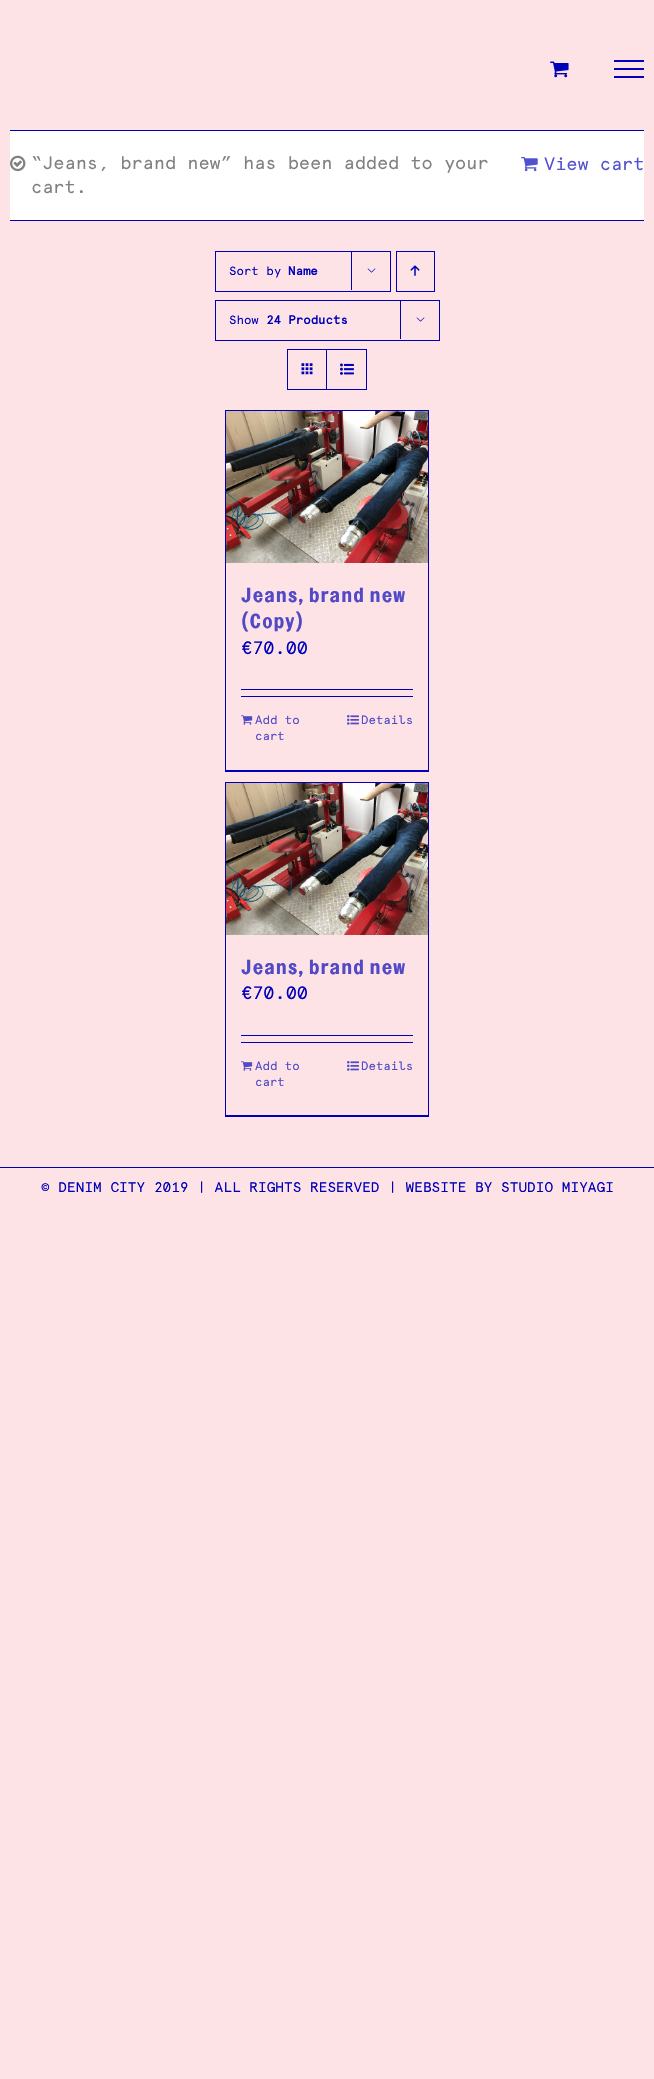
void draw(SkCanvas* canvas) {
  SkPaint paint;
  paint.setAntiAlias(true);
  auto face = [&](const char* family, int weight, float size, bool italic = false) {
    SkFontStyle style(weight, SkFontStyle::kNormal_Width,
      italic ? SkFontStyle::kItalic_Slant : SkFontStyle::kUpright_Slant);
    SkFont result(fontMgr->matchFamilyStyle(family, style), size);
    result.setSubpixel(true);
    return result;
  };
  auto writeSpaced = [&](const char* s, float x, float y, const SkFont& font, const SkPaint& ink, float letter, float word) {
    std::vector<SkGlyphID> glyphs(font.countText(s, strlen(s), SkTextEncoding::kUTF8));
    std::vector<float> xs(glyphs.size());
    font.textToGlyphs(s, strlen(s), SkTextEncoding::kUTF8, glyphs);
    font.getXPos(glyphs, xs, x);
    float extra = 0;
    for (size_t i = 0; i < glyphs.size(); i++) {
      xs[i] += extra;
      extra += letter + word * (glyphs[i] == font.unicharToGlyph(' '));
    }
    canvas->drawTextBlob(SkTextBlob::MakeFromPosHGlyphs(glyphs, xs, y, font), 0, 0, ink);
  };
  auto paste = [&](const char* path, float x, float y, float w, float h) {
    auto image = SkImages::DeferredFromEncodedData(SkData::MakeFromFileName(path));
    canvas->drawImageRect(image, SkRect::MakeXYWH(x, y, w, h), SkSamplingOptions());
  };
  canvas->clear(0xfffde3e5);
  paste("img/1.png", 550, 61, 19, 17);
  {
    const struct { float x, y, w, h; SkColor color; } items[] = {
      {614, 60, 30, 2, 0xff0000bb},
      {614, 68, 30, 2, 0xff0000bb},
      {614, 76, 30, 2, 0xff0000bb},
      {10, 131, 634, 89, 0xffffffff},
      {10, 130, 634, 1, 0xff0000bb},
      {10, 220, 634, 1, 0xff0000bb},
    };
    for (auto [x, y, w, h, color] : items) {
      paint.setColor(color);
      canvas->drawRect(SkRect::MakeXYWH(x, y, w, h), paint);
    }
  }
  paste("img/2.png", 10, 155, 16, 17);
  paste("img/3.png", 521, 157, 17, 15);
  paint.setStroke(true);
  paint.setStrokeWidth(1);
  canvas->drawRect(SkRect::MakeXYWH(215.5f, 251.5f, 175, 40), paint);
  paint.setStroke(false);
  canvas->drawRect(SkRect::MakeXYWH(351, 251, 1, 39), paint);
  paste("img/4.png", 367, 268, 9, 5);
  paint.setStroke(true);
  canvas->drawRect(SkRect::MakeXYWH(396.5f, 251.5f, 38, 40), paint);
  paste("img/5.png", 410, 265, 10, 11);
  canvas->drawRect(SkRect::MakeXYWH(215.5f, 300.5f, 224, 40), paint);
  paint.setStroke(false);
  canvas->drawRect(SkRect::MakeXYWH(400, 300, 1, 39), paint);
  paste("img/4.png", 416, 317, 9, 5);
  paint.setStroke(true);
  canvas->drawRect(SkRect::MakeXYWH(287.5f, 349.5f, 79, 40), paint);
  paint.setStroke(false);
  canvas->drawRect(SkRect::MakeXYWH(326, 350, 1, 39), paint);
  paste("img/6.png", 301, 363, 12, 12);
  paste("img/7.png", 340, 363, 14, 12);
  {
    const struct { float x, y, w, h; SkColor color; } items[] = {
      {225, 410, 204, 1, 0xff0000bb},
      {428, 410, 1, 362, 0xff0000bb},
      {225, 770, 204, 2, 0xff0000bb},
      {225, 410, 1, 362, 0xff0000bb},
    };
    for (auto [x, y, w, h, color] : items) {
      paint.setColor(color);
      canvas->drawRect(SkRect::MakeXYWH(x, y, w, h), paint);
    }
  }
  paste("img/8.png", 226, 411, 202, 152);
  canvas->drawRect(SkRect::MakeXYWH(241, 689, 172, 1), paint);
  canvas->drawRect(SkRect::MakeXYWH(241, 696, 172, 1), paint);
  paste("img/9.png", 241, 715, 12, 10);
  paste("img/10.png", 347, 715, 12, 10);
  {
    const struct { float x, y, w, h; SkColor color; } items[] = {
      {225, 782, 204, 1, 0xff0000bb},
      {428, 782, 1, 335, 0xff0000bb},
      {225, 1115, 204, 2, 0xff0000bb},
      {225, 782, 1, 335, 0xff0000bb},
    };
    for (auto [x, y, w, h, color] : items) {
      paint.setColor(color);
      canvas->drawRect(SkRect::MakeXYWH(x, y, w, h), paint);
    }
  }
  paste("img/8.png", 226, 783, 202, 152);
  canvas->drawRect(SkRect::MakeXYWH(241, 1035, 172, 1), paint);
  canvas->drawRect(SkRect::MakeXYWH(241, 1042, 172, 1), paint);
  paste("img/9.png", 241, 1061, 12, 10);
  paste("img/10.png", 347, 1061, 12, 10);
  canvas->drawRect(SkRect::MakeXYWH(0, 1167, 654, 1), paint);
  auto f0 = face("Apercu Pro", 400, 18);
  paint.setColor(0xff808080);
  canvas->drawString("“Jeans, brand new” has been added to your", 31, 169, f0, paint);
  paint.setColor(0xff5252d1);
  canvas->drawString("View cart", 544, 170, f0, paint);
  paint.setColor(0xff808080);
  canvas->drawString("cart.", 31, 193, f0, paint);
  auto f1 = face("Apercu Pro", 400, 12);
  paint.setColor(0xff0000bb);
  canvas->drawString("Sort by", 229, 275, f1, paint);
  auto f2 = face("Apercu Pro", 700, 12);
  canvas->drawString("Name", 288, 275, f2, paint);
  canvas->drawString("Show", 229, 324, f1, paint);
  canvas->drawString("24 Products", 266, 324, f2, paint);
  auto f3 = face("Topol", 700, 20);
  paint.setColor(0xff5149c8);
  writeSpaced("Jeans, brand new", 241, 602, f3, paint, 1, 0);
  writeSpaced("(Copy)", 241, 628, f3, paint, 1, 0);
  paint.setColor(0xff0000bb);
  canvas->drawString("€70.00", 241, 654, f0, paint);
  paint.setColor(0xff5149c8);
  {
    const struct { const char* s; float x, y; } items[] = {
      {"Add to", 255, 724},
      {"cart", 255, 740},
      {"Details", 361, 724},
    };
    for (auto [s, x, y] : items) {
      canvas->drawString(s, x, y, f1, paint);
    }
  }
  writeSpaced("Jeans, brand new", 241, 974, f3, paint, 1, 0);
  paint.setColor(0xff0000bb);
  canvas->drawString("€70.00", 241, 999, f0, paint);
  paint.setColor(0xff5149c8);
  {
    const struct { const char* s; float x, y; } items[] = {
      {"Add to", 255, 1070},
      {"cart", 255, 1086},
      {"Details", 361, 1070},
    };
    for (auto [s, x, y] : items) {
      canvas->drawString(s, x, y, f1, paint);
    }
  }
  auto f4 = face("Apercu Pro", 400, 14);
  paint.setColor(0xff0000bb);
  canvas->drawString("© DENIM CITY 2019 | ALL RIGHTS RESERVED | WEBSITE BY STUDIO MIYAGI", 41, 1192, f4, paint);
}
